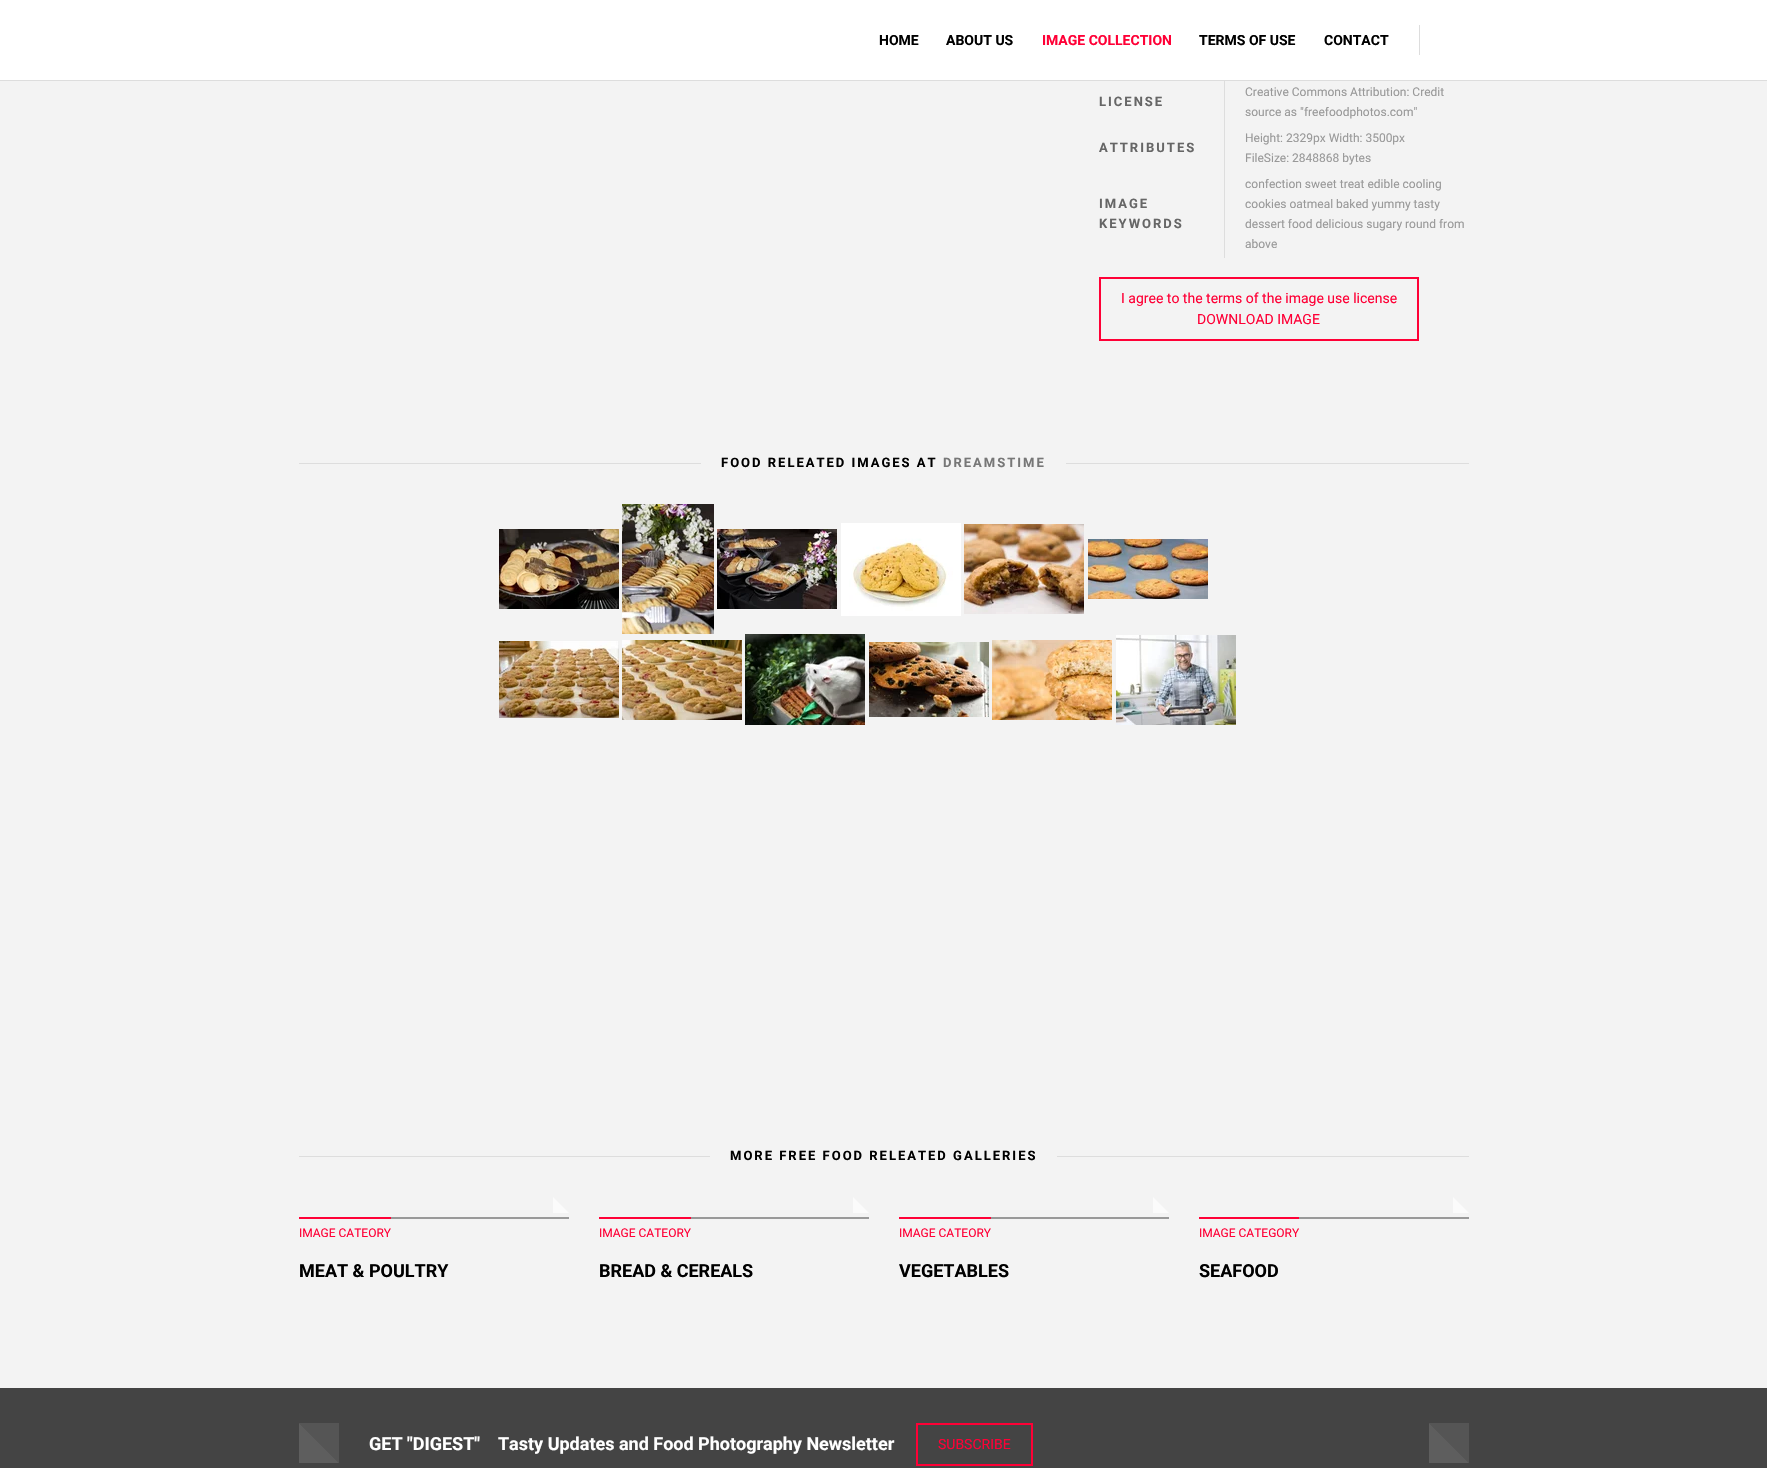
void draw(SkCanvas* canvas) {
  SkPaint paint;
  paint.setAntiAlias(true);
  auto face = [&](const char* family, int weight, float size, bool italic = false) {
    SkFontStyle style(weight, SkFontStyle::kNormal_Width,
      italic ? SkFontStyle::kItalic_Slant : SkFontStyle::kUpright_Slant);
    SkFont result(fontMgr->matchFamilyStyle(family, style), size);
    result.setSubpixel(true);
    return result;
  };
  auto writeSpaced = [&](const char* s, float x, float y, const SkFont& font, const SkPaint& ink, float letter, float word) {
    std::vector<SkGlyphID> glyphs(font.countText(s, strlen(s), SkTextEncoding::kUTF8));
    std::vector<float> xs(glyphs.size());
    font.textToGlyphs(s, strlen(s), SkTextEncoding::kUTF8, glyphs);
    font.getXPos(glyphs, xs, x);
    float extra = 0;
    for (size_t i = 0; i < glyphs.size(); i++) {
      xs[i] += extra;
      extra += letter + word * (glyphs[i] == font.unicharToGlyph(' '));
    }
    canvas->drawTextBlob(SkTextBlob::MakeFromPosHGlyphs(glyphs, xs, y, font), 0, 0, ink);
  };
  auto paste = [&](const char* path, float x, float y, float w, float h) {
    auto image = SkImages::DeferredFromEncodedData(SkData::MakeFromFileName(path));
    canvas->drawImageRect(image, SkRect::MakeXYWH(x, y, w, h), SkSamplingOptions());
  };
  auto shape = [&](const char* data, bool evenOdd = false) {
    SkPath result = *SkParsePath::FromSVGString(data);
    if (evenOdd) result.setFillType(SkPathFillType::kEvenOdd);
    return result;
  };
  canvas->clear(0xfff3f3f3);
  {
    const struct { float x, y, w, h; SkColor color; } items[] = {
      {0, 0, 1767, 80, 0xffffffff},
      {0, 80, 1767, 1, 0xffdddddd},
      {1419, 25, 1, 30, 0xffdddddd},
      {1224, 81, 1, 177, 0xffdddddd},
    };
    for (auto [x, y, w, h, color] : items) {
      paint.setColor(color);
      canvas->drawRect(SkRect::MakeXYWH(x, y, w, h), paint);
    }
  }
  paint.setStroke(true);
  paint.setStrokeWidth(2);
  paint.setColor(0xffff0036);
  canvas->drawRect(SkRect::MakeXYWH(1100, 278, 318, 62), paint);
  paint.setStroke(false);
  paint.setColor(0xffdddddd);
  canvas->drawRect(SkRect::MakeXYWH(299, 463, 402, 1), paint);
  canvas->drawRect(SkRect::MakeXYWH(1066, 463, 403, 1), paint);
  paste("img/1.png", 499, 529, 120, 80);
  paste("img/2.png", 622, 504, 92, 130);
  paste("img/3.png", 717, 529, 120, 80);
  paste("img/4.png", 841, 523, 120, 93);
  paste("img/5.png", 964, 524, 120, 90);
  paste("img/6.png", 1088, 539, 120, 60);
  paste("img/7.png", 499, 641, 120, 77);
  paste("img/8.png", 622, 640, 120, 80);
  paste("img/9.png", 745, 634, 120, 91);
  paste("img/10.png", 869, 642, 120, 75);
  paste("img/11.png", 992, 640, 120, 80);
  paste("img/12.png", 1116, 635, 120, 90);
  {
    const struct { float x, y, w, h; SkColor color; } items[] = {
      {299, 1156, 411, 1, 0xffdddddd},
      {1057, 1156, 412, 1, 0xffdddddd},
      {391, 1217, 178, 2, 0xff999999},
    };
    for (auto [x, y, w, h, color] : items) {
      paint.setColor(color);
      canvas->drawRect(SkRect::MakeXYWH(x, y, w, h), paint);
    }
  }
  paint.setColor(0xfffbfbfb);
  canvas->drawPath(shape("M553 1213V1197L569 1213Z"), paint);
  paint.setColor(0xffff0036);
  canvas->drawRect(SkRect::MakeXYWH(299, 1217, 92, 2), paint);
  paint.setColor(0xff999999);
  canvas->drawRect(SkRect::MakeXYWH(691, 1217, 178, 2), paint);
  paint.setColor(0xfffbfbfb);
  canvas->drawPath(shape("M853 1213V1197L869 1213Z"), paint);
  paint.setColor(0xffff0036);
  canvas->drawRect(SkRect::MakeXYWH(599, 1217, 92, 2), paint);
  paint.setColor(0xff999999);
  canvas->drawRect(SkRect::MakeXYWH(991, 1217, 178, 2), paint);
  paint.setColor(0xfffbfbfb);
  canvas->drawPath(shape("M1153 1213V1197L1169 1213Z"), paint);
  paint.setColor(0xffff0036);
  canvas->drawRect(SkRect::MakeXYWH(899, 1217, 92, 2), paint);
  paint.setColor(0xff999999);
  canvas->drawRect(SkRect::MakeXYWH(1299, 1217, 170, 2), paint);
  paint.setColor(0xfffbfbfb);
  canvas->drawPath(shape("M1453 1213V1197L1469 1213Z"), paint);
  paint.setColor(0xffff0036);
  canvas->drawRect(SkRect::MakeXYWH(1199, 1217, 100, 2), paint);
  paint.setColor(0xff444444);
  canvas->drawRect(SkRect::MakeXYWH(0, 1388, 1767, 80), paint);
  paint.setColor(0xff555555);
  canvas->drawPath(shape("M299 1423H339V1463Z"), paint);
  paint.setColor(0xff5e5e5e);
  canvas->drawPath(shape("M299 1463V1423L339 1463Z"), paint);
  paint.setStroke(true);
  paint.setColor(0xffff0036);
  canvas->drawRect(SkRect::MakeXYWH(917, 1424, 115, 41), paint);
  paint.setStroke(false);
  paint.setColor(0xff555555);
  canvas->drawPath(shape("M1429 1423H1469V1463Z"), paint);
  paint.setColor(0xff5e5e5e);
  canvas->drawPath(shape("M1429 1463V1423L1469 1463Z"), paint);
  auto f0 = face("Roboto", 700, 14);
  paint.setColor(0xff000000);
  canvas->drawString("HOME", 879, 45, f0, paint);
  canvas->drawString("ABOUT US", 946, 45, f0, paint);
  paint.setColor(0xffff0036);
  canvas->drawString("IMAGE COLLECTION", 1042, 45, f0, paint);
  paint.setColor(0xff000000);
  canvas->drawString("TERMS OF USE", 1199, 45, f0, paint);
  canvas->drawString("CONTACT", 1324, 45, f0, paint);
  auto f1 = face("Roboto", 700, 13);
  paint.setColor(0xff666666);
  writeSpaced("LICENSE", 1099, 106, f1, paint, 2, 0);
  auto f2 = face("Roboto", 400, 12);
  paint.setColor(0xff999999);
  canvas->drawString("Creative Commons Attribution: Credit", 1245, 96, f2, paint);
  canvas->drawString("source as \"freefoodphotos.com\"", 1245, 116, f2, paint);
  paint.setColor(0xff666666);
  writeSpaced("ATTRIBUTES", 1099, 152, f1, paint, 2, 0);
  paint.setColor(0xff999999);
  canvas->drawString("Height: 2329px Width: 3500px", 1245, 142, f2, paint);
  canvas->drawString("FileSize: 2848868 bytes", 1245, 162, f2, paint);
  paint.setColor(0xff666666);
  writeSpaced("IMAGE", 1099, 208, f1, paint, 2, 0);
  writeSpaced("KEYWORDS", 1099, 228, f1, paint, 2, 0);
  paint.setColor(0xff999999);
  {
    const struct { const char* s; float x, y; } items[] = {
      {"confection sweet treat edible cooling", 1245, 188},
      {"cookies oatmeal baked yummy tasty", 1245, 208},
      {"dessert food delicious sugary round from", 1245, 228},
      {"above", 1245, 248},
    };
    for (auto [s, x, y] : items) {
      canvas->drawString(s, x, y, f2, paint);
    }
  }
  auto f3 = face("Roboto", 400, 14);
  paint.setColor(0xffff0036);
  canvas->drawString("I agree to the terms of the image use license", 1121, 303, f3, paint);
  canvas->drawString("DOWNLOAD IMAGE", 1197, 324, f3, paint);
  paint.setColor(0xff000000);
  writeSpaced("FOOD RELEATED IMAGES AT", 721, 467, f1, paint, 2, 0);
  paint.setColor(0xff777777);
  writeSpaced("DREAMSTIME", 943, 467, f1, paint, 2, 0);
  paint.setColor(0xff000000);
  writeSpaced("MORE FREE FOOD RELEATED GALLERIES", 730, 1160, f1, paint, 2, 0);
  paint.setColor(0xffff0036);
  canvas->drawString("IMAGE CATEORY", 299, 1237, f2, paint);
  auto f4 = face("Roboto", 700, 18);
  paint.setColor(0xff000000);
  canvas->drawString("MEAT & POULTRY", 299, 1277, f4, paint);
  paint.setColor(0xffff0036);
  canvas->drawString("IMAGE CATEORY", 599, 1237, f2, paint);
  paint.setColor(0xff000000);
  canvas->drawString("BREAD & CEREALS", 599, 1277, f4, paint);
  paint.setColor(0xffff0036);
  canvas->drawString("IMAGE CATEORY", 899, 1237, f2, paint);
  paint.setColor(0xff000000);
  canvas->drawString("VEGETABLES", 899, 1277, f4, paint);
  paint.setColor(0xffff0036);
  canvas->drawString("IMAGE CATEGORY", 1199, 1237, f2, paint);
  paint.setColor(0xff000000);
  canvas->drawString("SEAFOOD", 1199, 1277, f4, paint);
  paint.setColor(0xffffffff);
  canvas->drawString("GET \"DIGEST\"    Tasty Updates and Food Photography Newsletter", 369, 1450, f4, paint);
  paint.setColor(0xffff0036);
  canvas->drawString("SUBSCRIBE", 938, 1449, f3, paint);
}
